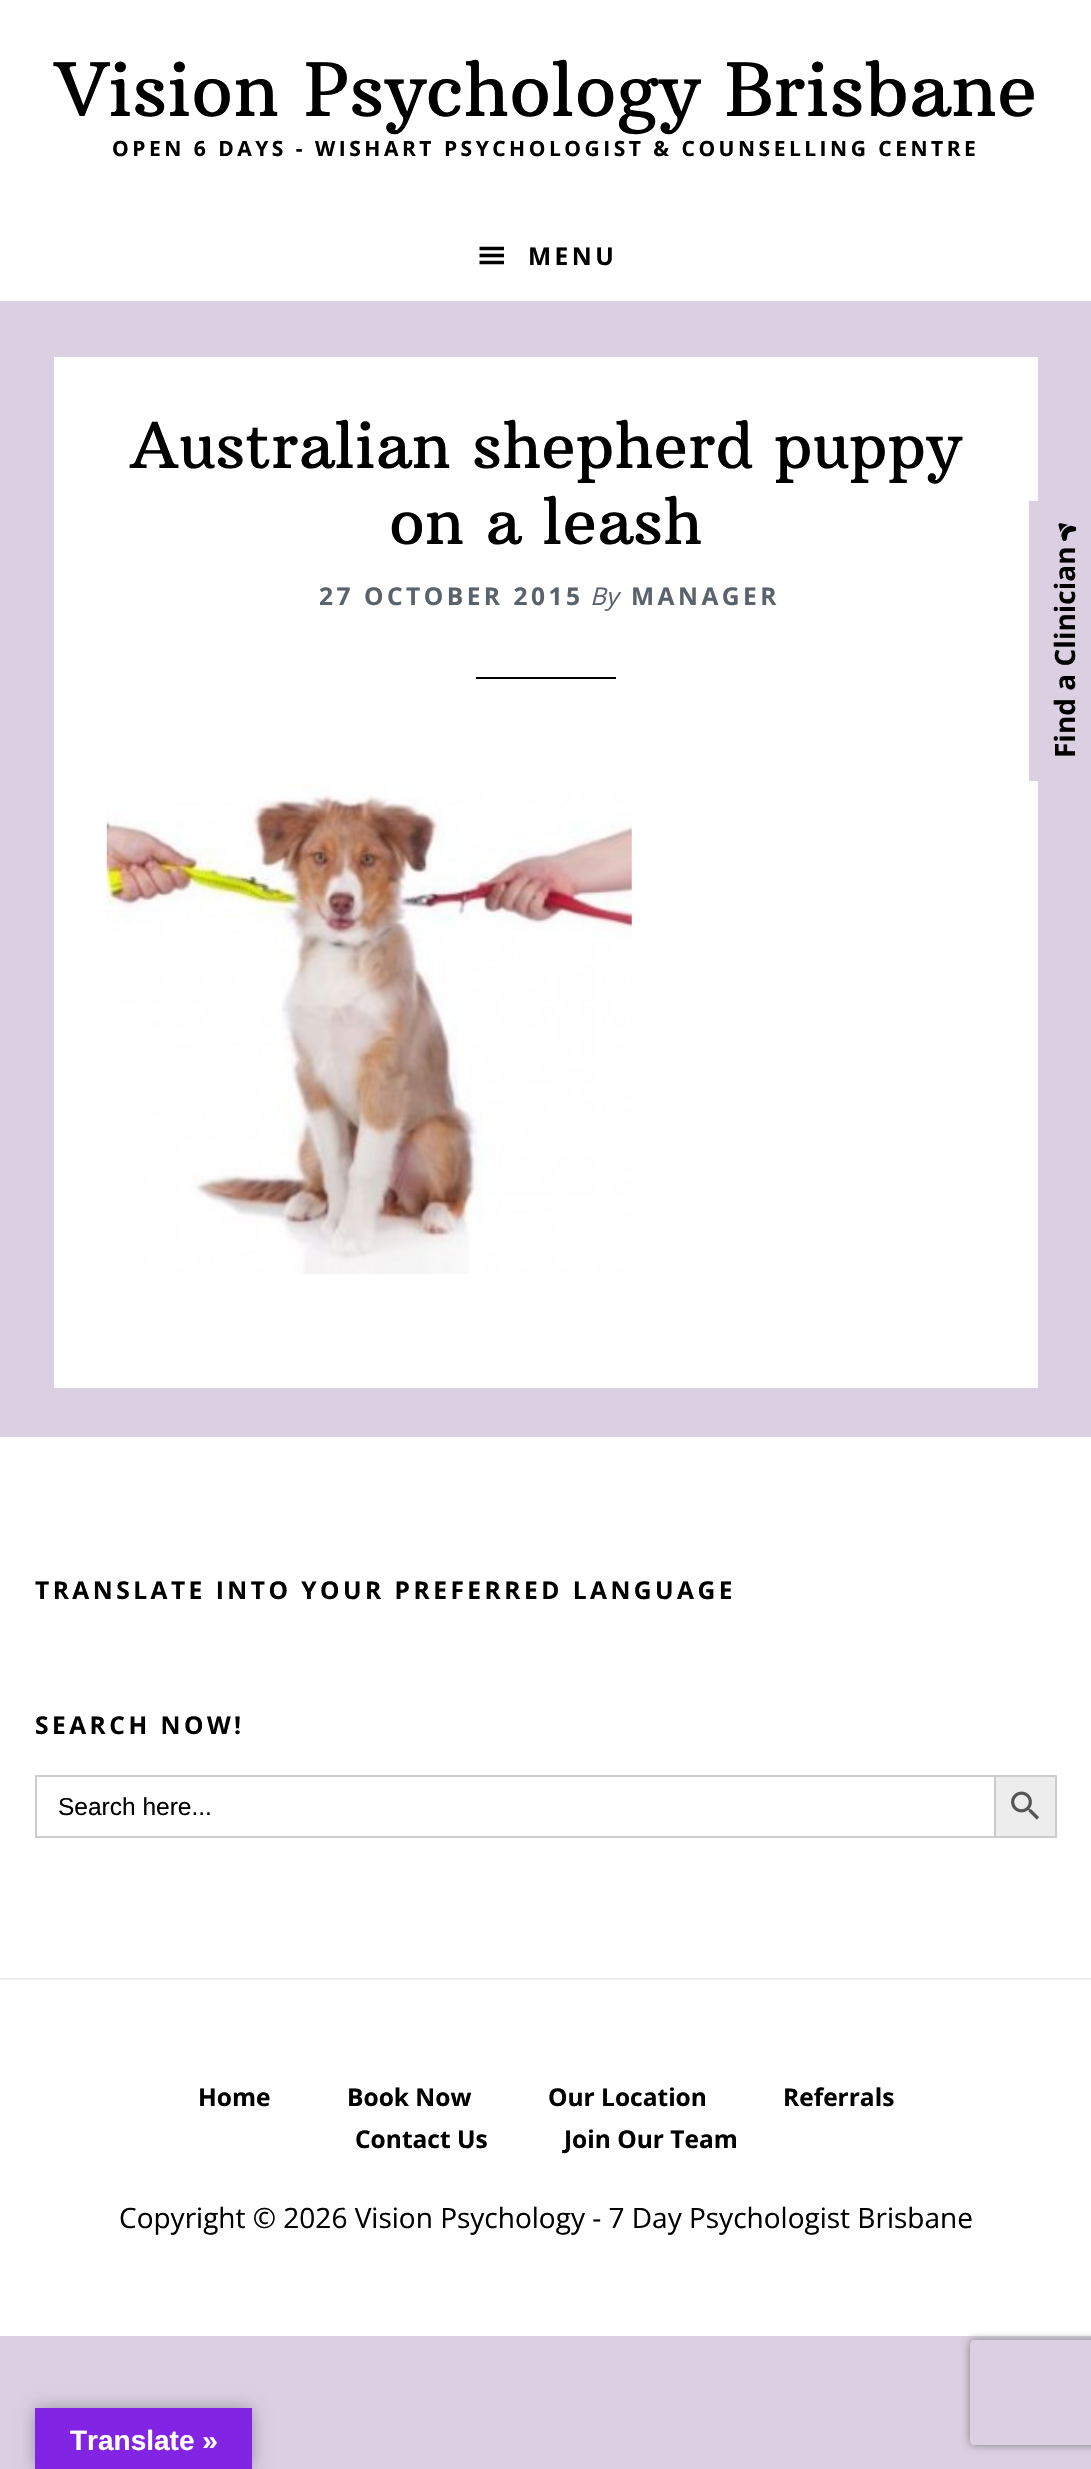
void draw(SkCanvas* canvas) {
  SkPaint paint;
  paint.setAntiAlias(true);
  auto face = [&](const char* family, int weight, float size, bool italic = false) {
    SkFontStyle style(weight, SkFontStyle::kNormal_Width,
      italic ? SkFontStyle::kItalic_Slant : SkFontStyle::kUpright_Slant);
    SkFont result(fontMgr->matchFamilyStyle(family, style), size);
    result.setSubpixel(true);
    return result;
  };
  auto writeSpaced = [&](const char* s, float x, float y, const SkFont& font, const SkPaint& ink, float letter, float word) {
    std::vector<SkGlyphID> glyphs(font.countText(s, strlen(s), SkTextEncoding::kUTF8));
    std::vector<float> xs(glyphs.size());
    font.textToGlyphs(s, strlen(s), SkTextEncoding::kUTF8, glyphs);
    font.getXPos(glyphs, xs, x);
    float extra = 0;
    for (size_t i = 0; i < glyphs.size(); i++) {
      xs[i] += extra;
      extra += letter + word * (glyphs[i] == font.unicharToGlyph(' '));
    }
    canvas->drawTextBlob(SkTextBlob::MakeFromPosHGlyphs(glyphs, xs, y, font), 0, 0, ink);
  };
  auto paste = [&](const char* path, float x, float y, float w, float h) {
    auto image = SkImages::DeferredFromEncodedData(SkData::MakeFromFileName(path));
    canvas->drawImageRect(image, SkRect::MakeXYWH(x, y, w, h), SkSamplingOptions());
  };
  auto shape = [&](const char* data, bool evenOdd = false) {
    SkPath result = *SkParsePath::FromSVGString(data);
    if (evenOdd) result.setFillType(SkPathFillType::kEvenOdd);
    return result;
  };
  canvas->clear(0xffdad0e2);
  paint.setColor(0xffffffff);
  canvas->drawRect(SkRect::MakeXYWH(0, 0, 1091, 301), paint);
  paste("img/1.png", 479, 246, 25, 19);
  canvas->drawRect(SkRect::MakeXYWH(54, 357, 984, 1031), paint);
  paint.setColor(0xff000000);
  canvas->drawRect(SkRect::MakeXYWH(476, 677, 140, 2), paint);
  paste("img/2.png", 106, 784, 526, 490);
  {
    const struct { float x, y, w, h; SkColor color; } items[] = {
      {0, 1437, 1091, 541, 0xffffffff},
      {35, 1775, 959, 2, 0xffcccccc},
      {35, 1836, 959, 2, 0xffcccccc},
      {35, 1775, 2, 63, 0xffcccccc},
    };
    for (auto [x, y, w, h, color] : items) {
      paint.setColor(color);
      canvas->drawRect(SkRect::MakeXYWH(x, y, w, h), paint);
    }
  }
  paint.setColor(0xffededed);
  canvas->drawRect(SkRect::MakeXYWH(995, 1776, 61, 61), paint);
  paint.setStroke(true);
  paint.setStrokeWidth(2);
  paint.setColor(0xffcccccc);
  canvas->drawRect(SkRect::MakeXYWH(995, 1776, 61, 61), paint);
  paste("img/3.png", 1011, 1791, 28, 29);
  paint.setStroke(false);
  {
    const struct { float x, y, w, h; SkColor color; } items[] = {
      {0, 1980, 1091, 356, 0xffffffff},
      {0, 1978, 1091, 2, 0xffeeeeee},
      {1029, 501, 9, 280, 0xffdbd0e1},
    };
    for (auto [x, y, w, h, color] : items) {
      paint.setColor(color);
      canvas->drawRect(SkRect::MakeXYWH(x, y, w, h), paint);
    }
  }
  paste("img/4.png", 1058, 523, 19, 18);
  paint.setColor(0x4d000000);
  paint.setMaskFilter(SkMaskFilter::MakeBlur(kNormal_SkBlurStyle, 8));
  canvas->drawRect(SkRect::MakeXYWH(35, 2408, 217, 61), paint);
  paint.setMaskFilter(nullptr);
  paint.setColor(0xff8224e3);
  canvas->drawRect(SkRect::MakeXYWH(35, 2408, 217, 61), paint);
  canvas->save();
  canvas->clipPath(shape("M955 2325H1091V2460H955ZM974 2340H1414C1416 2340 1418 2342 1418 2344V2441C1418 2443 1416 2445 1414 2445H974C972 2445 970 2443 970 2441V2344C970 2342 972 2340 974 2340Z", true), true);
  paint.setColor(0xff808080);
  paint.setMaskFilter(SkMaskFilter::MakeBlur(kNormal_SkBlurStyle, 4.5f));
  canvas->drawRoundRect(SkRect::MakeXYWH(970, 2340, 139, 105), 4, 4, paint);
  paint.setMaskFilter(nullptr);
  canvas->restore();
  auto f0 = face("Arbutus Slab", 400, 73.5f);
  paint.setColor(0xff000000);
  canvas->drawString("Vision Psychology Brisbane", 55, 116, f0, paint);
  auto f1 = face("Open Sans", 700, 21);
  writeSpaced("OPEN 6 DAYS - WISHART PSYCHOLOGIST & COUNSELLING CENTRE", 112, 156, f1, paint, 3.5f, 0);
  auto f2 = face("Open Sans", 700, 24.5f);
  writeSpaced("MENU", 528, 265, f2, paint, 3.5f, 0);
  auto f3 = face("Arbutus Slab", 400, 63);
  canvas->drawString("Australian shepherd puppy", 130, 468, f3, paint);
  canvas->drawString("on a leash", 389, 544, f3, paint);
  paint.setColor(0xff5a636c);
  writeSpaced("27 OCTOBER 2015", 319, 605, f2, paint, 3.5f, 0);
  auto f4 = face("Open Sans", 400, 24.5f, true);
  canvas->drawString("By", 590, 605, f4, paint);
  writeSpaced("MANAGER", 631, 605, f2, paint, 3.5f, 0);
  paint.setColor(0xff000000);
  writeSpaced("TRANSLATE INTO YOUR PREFERRED LANGUAGE", 35, 1599, f2, paint, 3.5f, 0);
  writeSpaced("SEARCH NOW!", 35, 1734, f2, paint, 3.5f, 0);
  auto f5 = face("Liberation Sans", 400, 24.5f);
  canvas->drawString("Search here...", 58, 1815, f5, paint);
  {
    const struct { const char* s; float x, y; } items[] = {
      {"Home", 198, 2106},
      {"Book Now", 347, 2106},
      {"Our Location", 548, 2106},
      {"Referrals", 783, 2106},
      {"Contact Us", 355, 2148},
      {"Join Our Team", 564, 2148},
    };
    for (auto [s, x, y] : items) {
      canvas->drawString(s, x, y, f2, paint);
    }
  }
  auto f6 = face("Open Sans", 400, 28);
  canvas->drawString("Copyright © 2026 Vision Psychology - 7 Day Psychologist Brisbane", 119, 2228, f6, paint);
  auto f7 = face("Open Sans", 700, 28);
  canvas->save();
  canvas->rotate(-90, 1075, 758);
  canvas->drawString("Find a Clinician", 1075, 758, f7, paint);
  canvas->restore();
  auto f8 = face("Liberation Sans", 700, 28);
  paint.setColor(0xffffffff);
  canvas->drawString("Translate »", 70, 2450, f8, paint);
}
